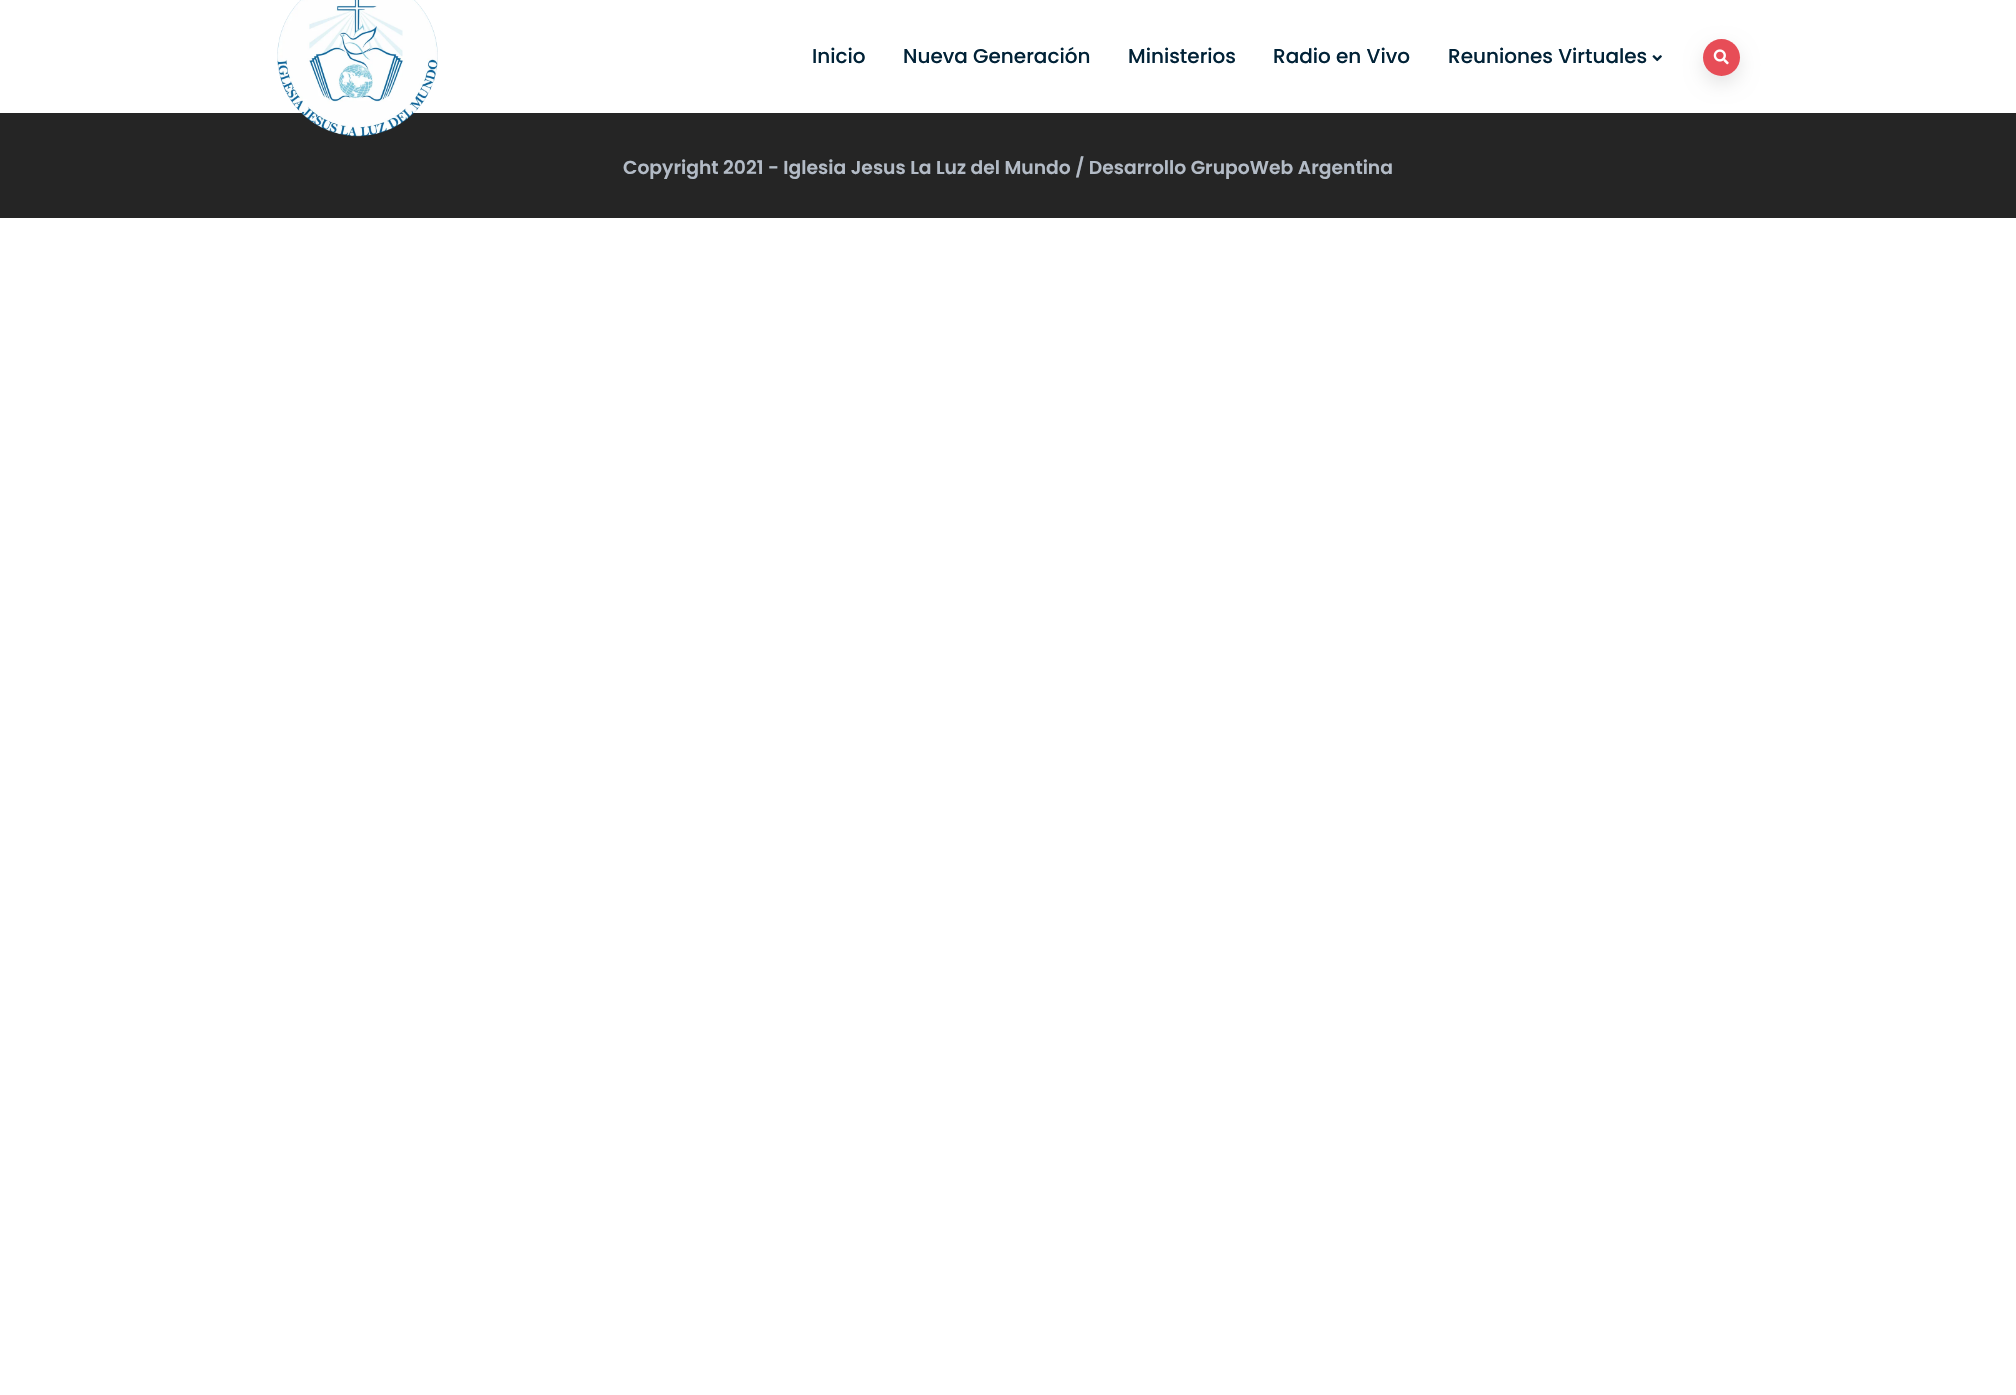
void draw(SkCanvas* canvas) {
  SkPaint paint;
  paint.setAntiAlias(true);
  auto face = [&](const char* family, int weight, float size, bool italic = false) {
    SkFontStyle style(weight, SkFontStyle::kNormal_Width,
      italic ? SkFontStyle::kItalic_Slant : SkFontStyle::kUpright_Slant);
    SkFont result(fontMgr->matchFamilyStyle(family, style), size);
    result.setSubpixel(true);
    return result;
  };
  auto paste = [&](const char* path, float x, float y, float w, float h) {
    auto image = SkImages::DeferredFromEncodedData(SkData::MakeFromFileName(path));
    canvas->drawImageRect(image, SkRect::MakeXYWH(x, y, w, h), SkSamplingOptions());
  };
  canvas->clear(0xffffffff);
  paint.setColor(0xff252525);
  canvas->drawRect(SkRect::MakeXYWH(0, 113, 2016, 105), paint);
  paste("img/1.png", 277, 0, 161, 137);
  paste("img/2.png", 1652, 55, 10, 7);
  paint.setColor(0x1a000000);
  paint.setMaskFilter(SkMaskFilter::MakeBlur(kNormal_SkBlurStyle, 9));
  canvas->drawRoundRect(SkRect::MakeXYWH(1703, 46, 37, 38), 18.5f, 18.5f, paint);
  paint.setMaskFilter(nullptr);
  paint.setColor(0xffe74d57);
  canvas->drawCircle(1721.5f, 57.5f, 18.5f, paint);
  paste("img/3.png", 1713, 49, 16, 16);
  auto f0 = face("Poppins", 500, 20);
  paint.setColor(0xff012237);
  {
    const struct { const char* s; float x, y; } items[] = {
      {"Inicio", 812, 63},
      {"Nueva Generación", 903, 63},
      {"Ministerios", 1128, 63},
      {"Radio en Vivo", 1273, 63},
      {"Reuniones Virtuales", 1448, 63},
    };
    for (auto [s, x, y] : items) {
      canvas->drawString(s, x, y, f0, paint);
    }
  }
  auto f1 = face("Poppins", 600, 18.75f);
  paint.setColor(0xffb3bbc6);
  canvas->drawString("Copyright 2021 - Iglesia Jesus La Luz del Mundo / Desarrollo GrupoWeb Argentina", 623, 174, f1, paint);
}
